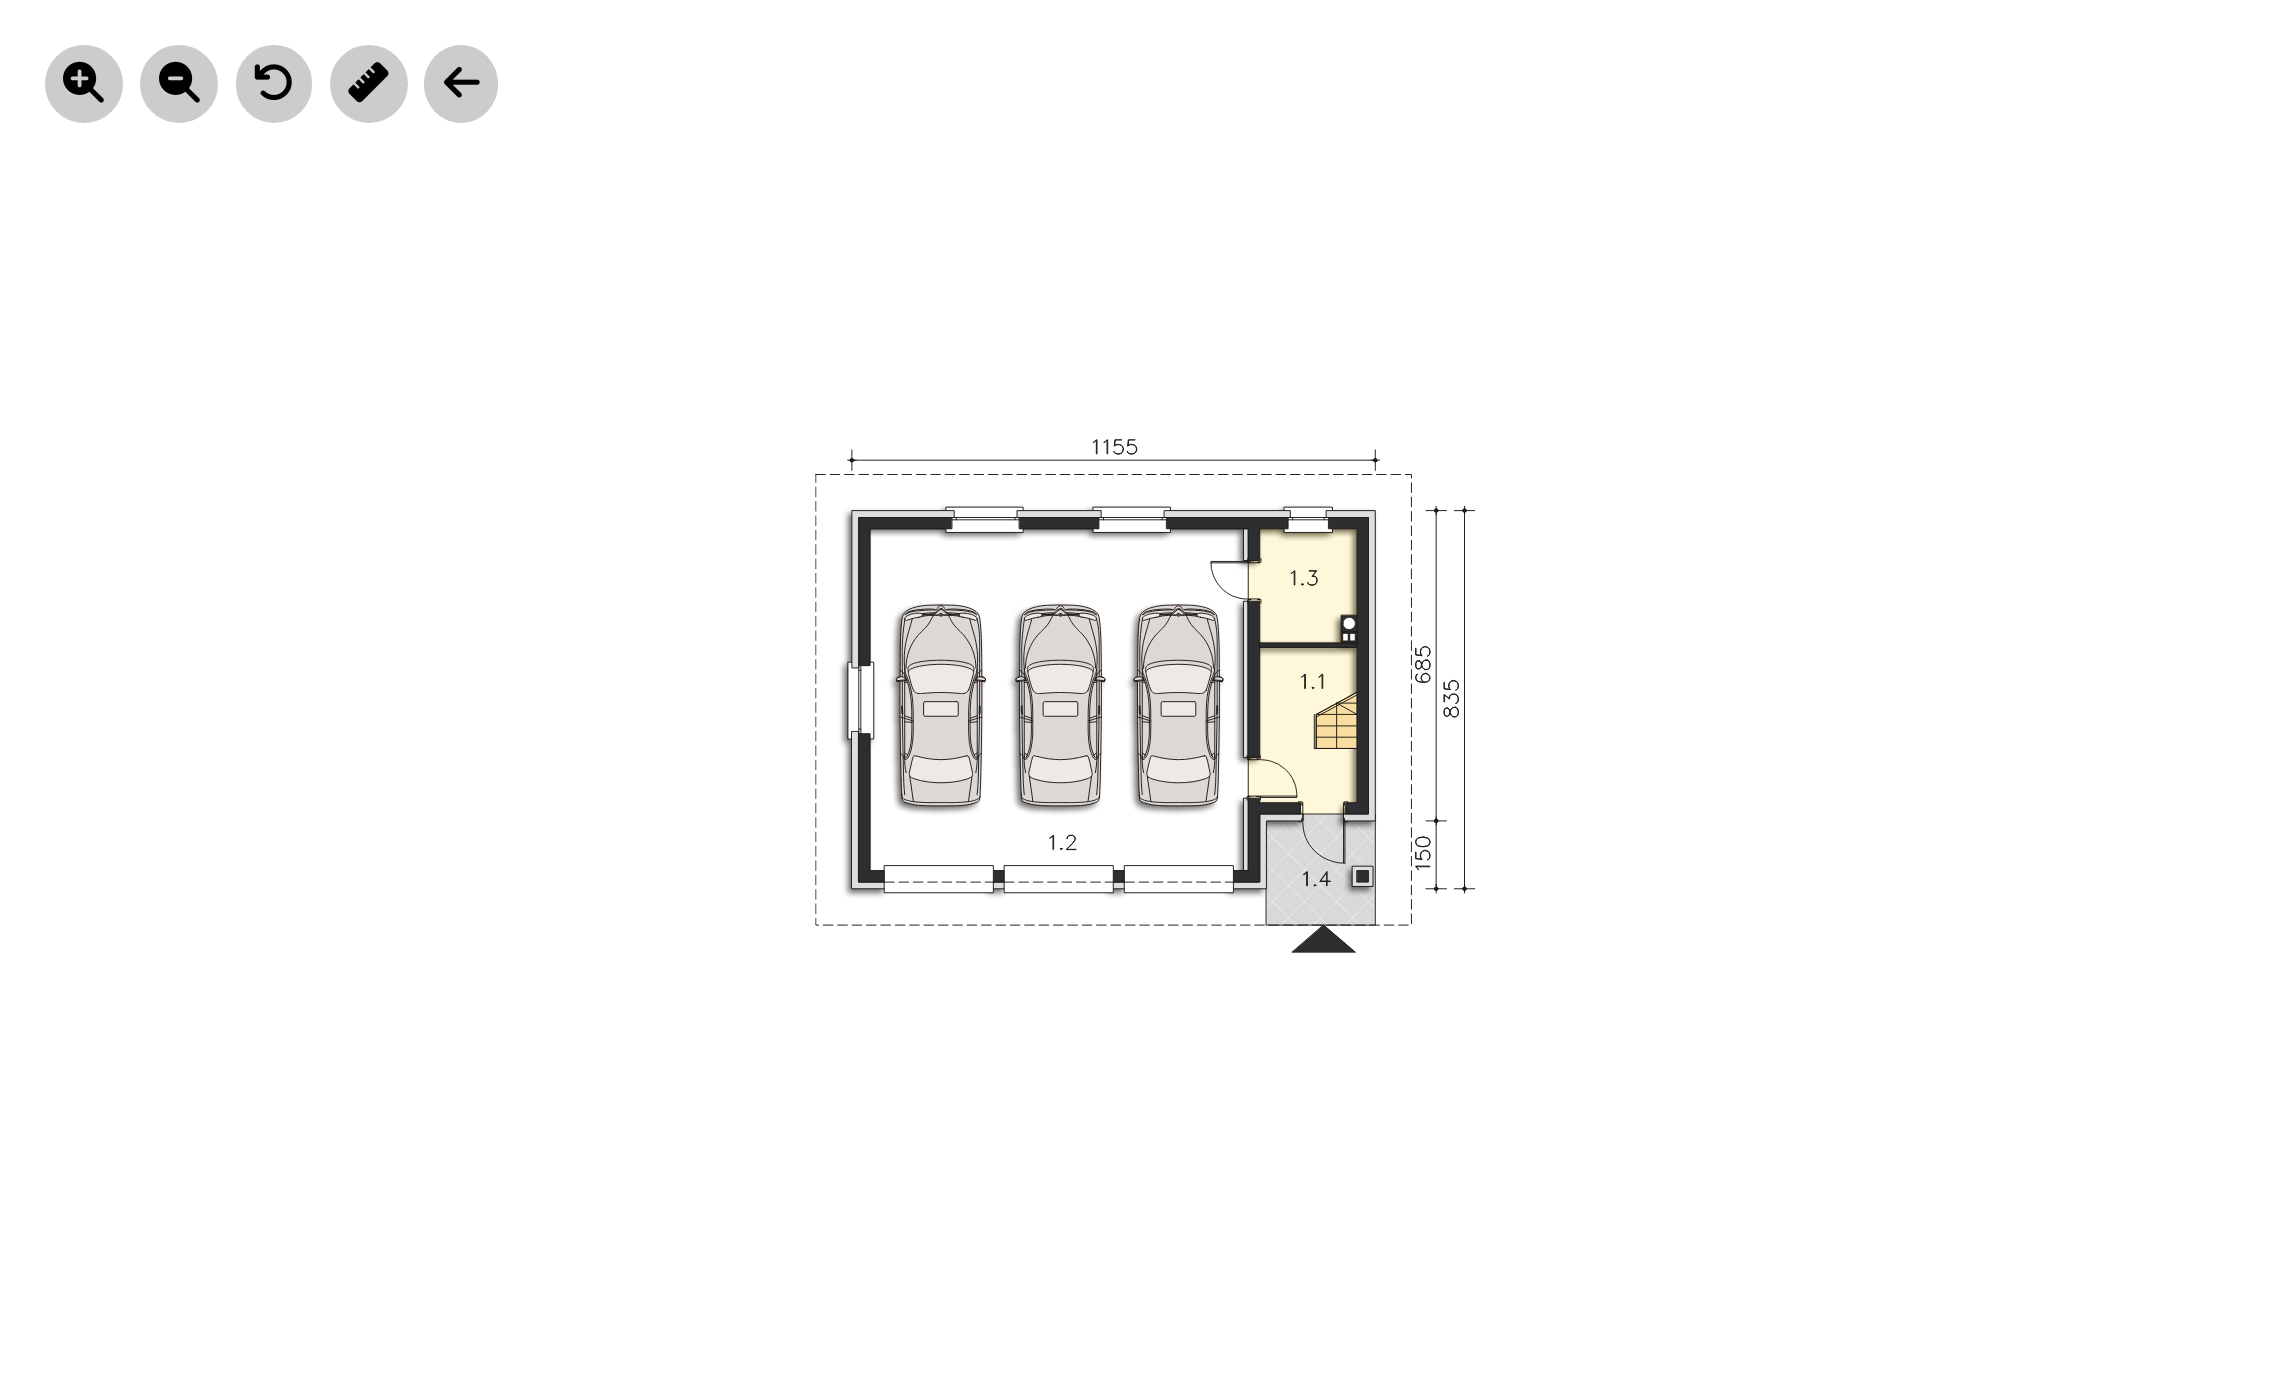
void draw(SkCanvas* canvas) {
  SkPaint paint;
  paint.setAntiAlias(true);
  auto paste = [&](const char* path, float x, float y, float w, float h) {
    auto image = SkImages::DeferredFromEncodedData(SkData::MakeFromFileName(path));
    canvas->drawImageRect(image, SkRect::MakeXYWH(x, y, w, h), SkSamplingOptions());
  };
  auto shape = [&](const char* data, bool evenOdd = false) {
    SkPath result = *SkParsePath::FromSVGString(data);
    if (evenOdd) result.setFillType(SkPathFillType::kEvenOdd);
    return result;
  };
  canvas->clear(0xffffffff);
  paint.setColor(0xffcccccc);
  canvas->drawCircle(84, 84, 38, paint);
  paint.setStroke(true);
  paint.setStrokeWidth(2);
  canvas->drawCircle(84, 84, 38, paint);
  paste("img/1.png", 63, 61, 41, 42);
  paint.setStroke(false);
  canvas->drawCircle(179, 84, 38, paint);
  paint.setStroke(true);
  canvas->drawCircle(179, 84, 38, paint);
  paste("img/2.png", 159, 61, 41, 42);
  paint.setStroke(false);
  canvas->drawRoundRect(SkRect::MakeXYWH(237, 46, 74, 76), 37, 37, paint);
  paint.setStroke(true);
  canvas->drawRoundRect(SkRect::MakeXYWH(237, 46, 74, 76), 37, 37, paint);
  paste("img/3.png", 254, 64, 38, 37);
  paint.setStroke(false);
  canvas->drawCircle(369, 84, 38, paint);
  paint.setStroke(true);
  canvas->drawCircle(369, 84, 38, paint);
  paste("img/4.png", 348, 62, 41, 41);
  paint.setStroke(false);
  canvas->drawOval(SkRect::MakeXYWH(424, 45, 74, 78), paint);
  paint.setStroke(true);
  paint.setStrokeWidth(1.5f);
  canvas->drawPath(shape("M461 46C481 46 497 63 497 84C497 105 481 122 461 122C441.5 122 425 105 425 84C425 63 441.5 46 461 46Z"), paint);
  paste("img/5.png", 444, 66, 36, 32);
  paste("img/6.png", 815, 439, 660, 514);
}
